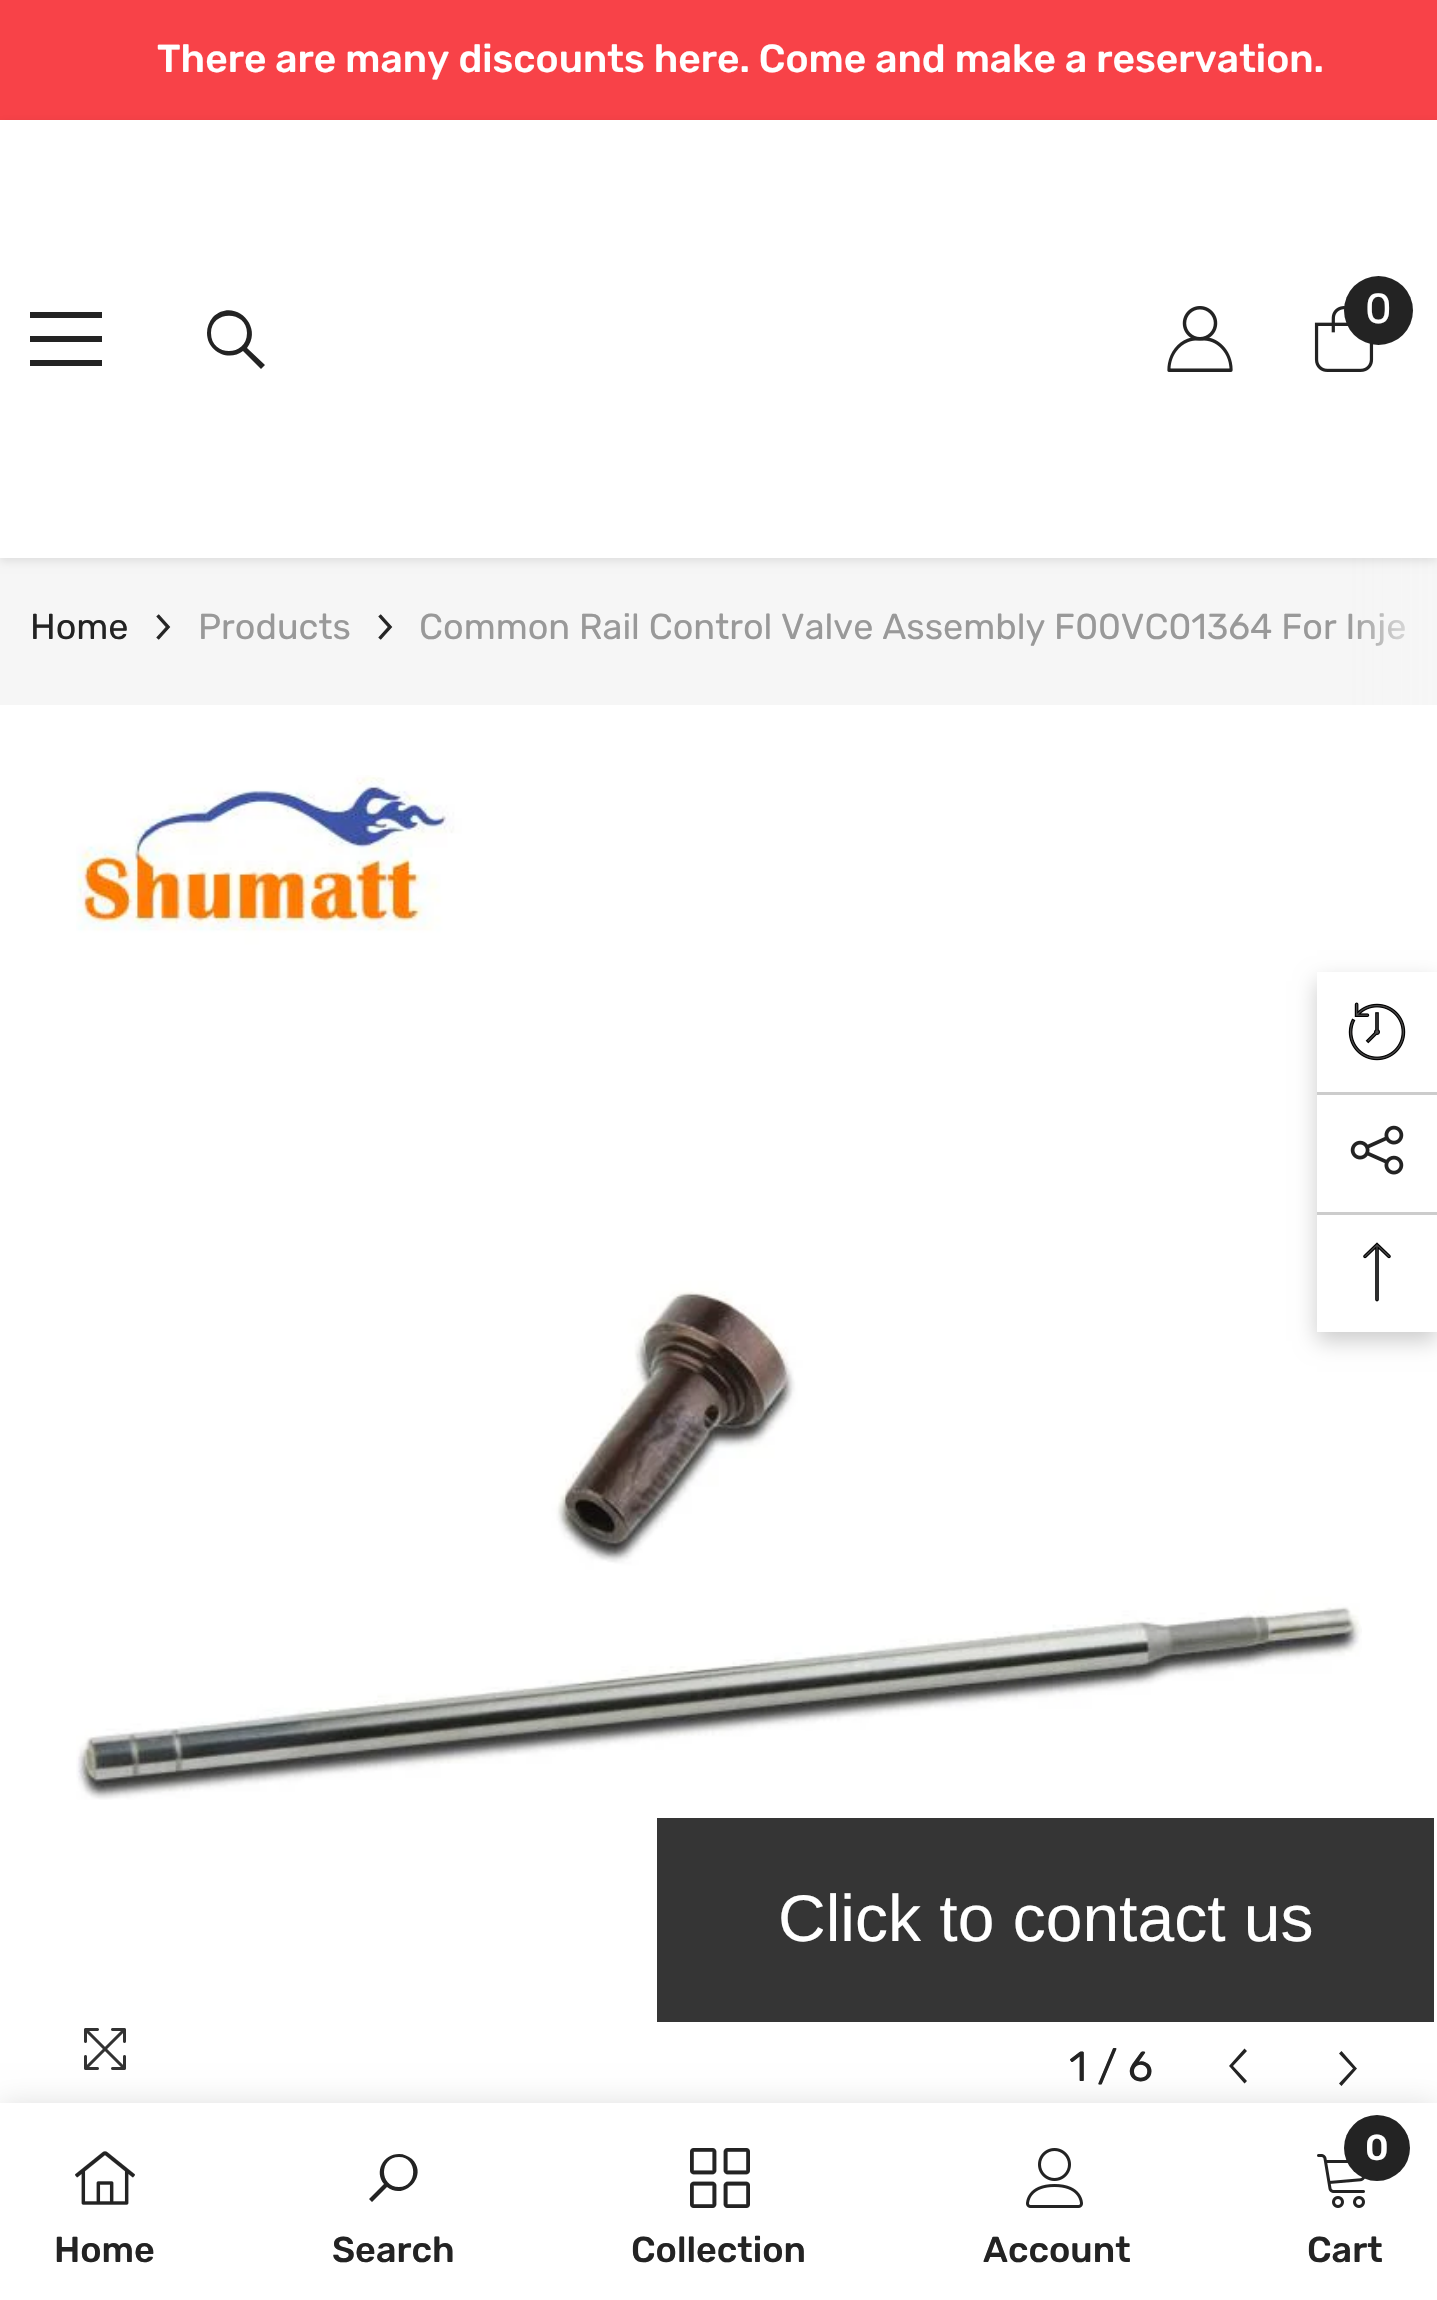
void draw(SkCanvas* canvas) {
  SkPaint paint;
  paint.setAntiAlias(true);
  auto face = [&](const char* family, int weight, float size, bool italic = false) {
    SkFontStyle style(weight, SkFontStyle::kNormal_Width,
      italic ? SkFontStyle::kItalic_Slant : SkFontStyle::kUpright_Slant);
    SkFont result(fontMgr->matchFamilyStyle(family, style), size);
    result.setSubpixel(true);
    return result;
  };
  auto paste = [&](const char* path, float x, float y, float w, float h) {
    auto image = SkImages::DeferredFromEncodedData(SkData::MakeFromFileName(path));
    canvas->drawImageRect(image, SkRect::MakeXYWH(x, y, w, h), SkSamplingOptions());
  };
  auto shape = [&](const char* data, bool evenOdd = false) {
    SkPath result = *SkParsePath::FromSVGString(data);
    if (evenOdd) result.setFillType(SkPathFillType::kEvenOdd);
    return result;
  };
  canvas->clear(0xffffffff);
  paint.setColor(0xfff84248);
  canvas->drawRect(SkRect::MakeXYWH(0, 0, 1437, 120), paint);
  paint.setColor(0xfff6f6f6);
  canvas->drawRect(SkRect::MakeXYWH(0, 558, 1436, 147), paint);
  paste("img/3.png", 156, 614, 15, 26);
  paste("img/3.png", 378, 614, 15, 26);
  paste("img/4.png", 84, 2028, 42, 42);
  paste("img/5.png", 76, 775, 1286, 1025);
  paint.setColor(0xff232323);
  canvas->drawPath(shape("M1244.5 2083.5L1247 2081L1233 2066L1247 2051L1244.5 2048.5L1229 2066L1230 2067Z"), paint);
  canvas->drawPath(shape("M1341.5 2051L1339 2053.5L1353 2068.5L1339 2083.5L1341.5 2086L1357 2068.5L1356 2067.5Z"), paint);
  paint.setColor(0xff353535);
  canvas->drawRect(SkRect::MakeXYWH(657, 1818, 777, 204), paint);
  paint.setColor(0x1f000000);
  paint.setMaskFilter(SkMaskFilter::MakeBlur(kNormal_SkBlurStyle, 13.5f));
  canvas->drawRect(SkRect::MakeXYWH(0, 2103, 1437, 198), paint);
  paint.setMaskFilter(nullptr);
  paint.setColor(0xffffffff);
  canvas->drawRect(SkRect::MakeXYWH(0, 2103, 1437, 197), paint);
  paste("img/6.png", 75, 2151, 60, 54);
  paint.setColor(0xff232323);
  canvas->drawPath(shape("M399 2154C383 2154 374 2172 384 2184L369 2199L372 2202L387 2187C404 2201 429 2176 412 2159C408 2156 404 2154 399 2154ZM399 2157C418 2157 418 2187 399 2187C379 2187 379 2157 399 2157Z"), paint);
  paste("img/7.png", 690, 2148, 60, 60);
  paste("img/8.png", 1026, 2148, 57, 60);
  paste("img/9.png", 1317, 2154, 48, 54);
  canvas->drawCircle(1377, 2148, 33, paint);
  canvas->save();
  canvas->clipPath(shape("M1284 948H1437V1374H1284ZM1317 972H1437V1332H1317Z", true), true);
  paint.setColor(0x33000000);
  paint.setMaskFilter(SkMaskFilter::MakeBlur(kNormal_SkBlurStyle, 10.5f));
  canvas->drawRect(SkRect::MakeXYWH(1317, 981, 120, 360), paint);
  paint.setMaskFilter(nullptr);
  canvas->restore();
  paste("img/10.png", 1348, 1002, 58, 59);
  paint.setColor(0xffcccccc);
  canvas->drawRect(SkRect::MakeXYWH(1317, 1092, 120, 3), paint);
  paste("img/11.png", 1350, 1125, 54, 50);
  canvas->drawRect(SkRect::MakeXYWH(1317, 1212, 120, 3), paint);
  paste("img/12.png", 1363, 1242, 28, 60);
  auto f0 = face("Rubik", 500, 39);
  paint.setColor(0xffffffff);
  canvas->drawString("There are many discounts here. Come and make a reservation.", 157, 72, f0, paint);
  auto f1 = face("Rubik", 400, 36);
  paint.setColor(0xff232323);
  canvas->drawString("Home", 30, 639, f1, paint);
  paint.setColor(0xff999999);
  canvas->drawString("Products", 198, 639, f1, paint);
  canvas->drawString("Common Rail Control Valve Assembly F00VC01364 For Inje", 419, 639, f1, paint);
  {
    const SkColor colors[] = {0xfff6f6f6, 0x00f6f6f6};
    const float stops[] = {0, 1};
    const SkPoint ends[] = {{1437, 632}, {1347, 632}};
    paint.setShader(SkGradientShader::MakeLinear(ends, colors, stops, 2, SkTileMode::kClamp));
    paint.setAlpha(255);
  }
  canvas->drawRect(SkRect::MakeXYWH(1349, 558, 88, 147), paint);
  canvas->save();
  canvas->clipPath(shape("M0 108H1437V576H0ZM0 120H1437V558H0Z", true), true);
  paint.setShader(nullptr);
  paint.setColor(0x1a000000);
  paint.setMaskFilter(SkMaskFilter::MakeBlur(kNormal_SkBlurStyle, 4.5f));
  canvas->drawRect(SkRect::MakeXYWH(0, 123, 1437, 438), paint);
  paint.setMaskFilter(nullptr);
  canvas->restore();
  {
    const struct { float x, y, w, h; SkColor color; } items[] = {
      {30, 360, 72, 6, 0xff232323},
      {30, 312, 72, 6, 0xff232323},
      {30, 336, 72, 6, 0xff232323},
    };
    for (auto [x, y, w, h, color] : items) {
      paint.setColor(color);
      canvas->drawRect(SkRect::MakeXYWH(x, y, w, h), paint);
    }
  }
  paste("img/2.png", 1314, 306, 60, 66);
  canvas->drawCircle(1378.5f, 310.5f, 34.5f, paint);
  auto f2 = face("Rubik", 400, 42);
  paint.setColor(0xffffffff);
  canvas->drawString("0", 1365, 323, f2, paint);
  paste("img/1.png", 1167, 306, 66, 66);
  paint.setColor(0xff232323);
  canvas->drawPath(shape("M207 333C207 352 229 362 243 351L261 369L265 365L247 348C264 326 234 297 213 317C209 322 207 327 207 333ZM211 333C211 310 247 310 247 333C247 357 211 357 211 333Z"), paint);
  canvas->drawString("1 / 6", 1069, 2081, f2, paint);
  auto f3 = face("Liberation Sans", 400, 66);
  paint.setColor(0xffffffff);
  canvas->drawString("Click to contact us", 778, 1941, f3, paint);
  auto f4 = face("Rubik", 500, 36);
  paint.setColor(0xff232323);
  {
    const struct { const char* s; float x, y; } items[] = {
      {"Home", 54, 2262},
      {"Search", 332, 2262},
      {"Collection", 631, 2262},
      {"Account", 983, 2262},
    };
    for (auto [s, x, y] : items) {
      canvas->drawString(s, x, y, f4, paint);
    }
  }
  paint.setColor(0xffffffff);
  canvas->drawString("0", 1365, 2160, f4, paint);
  paint.setColor(0xff232323);
  canvas->drawString("Cart", 1307, 2262, f4, paint);
}
